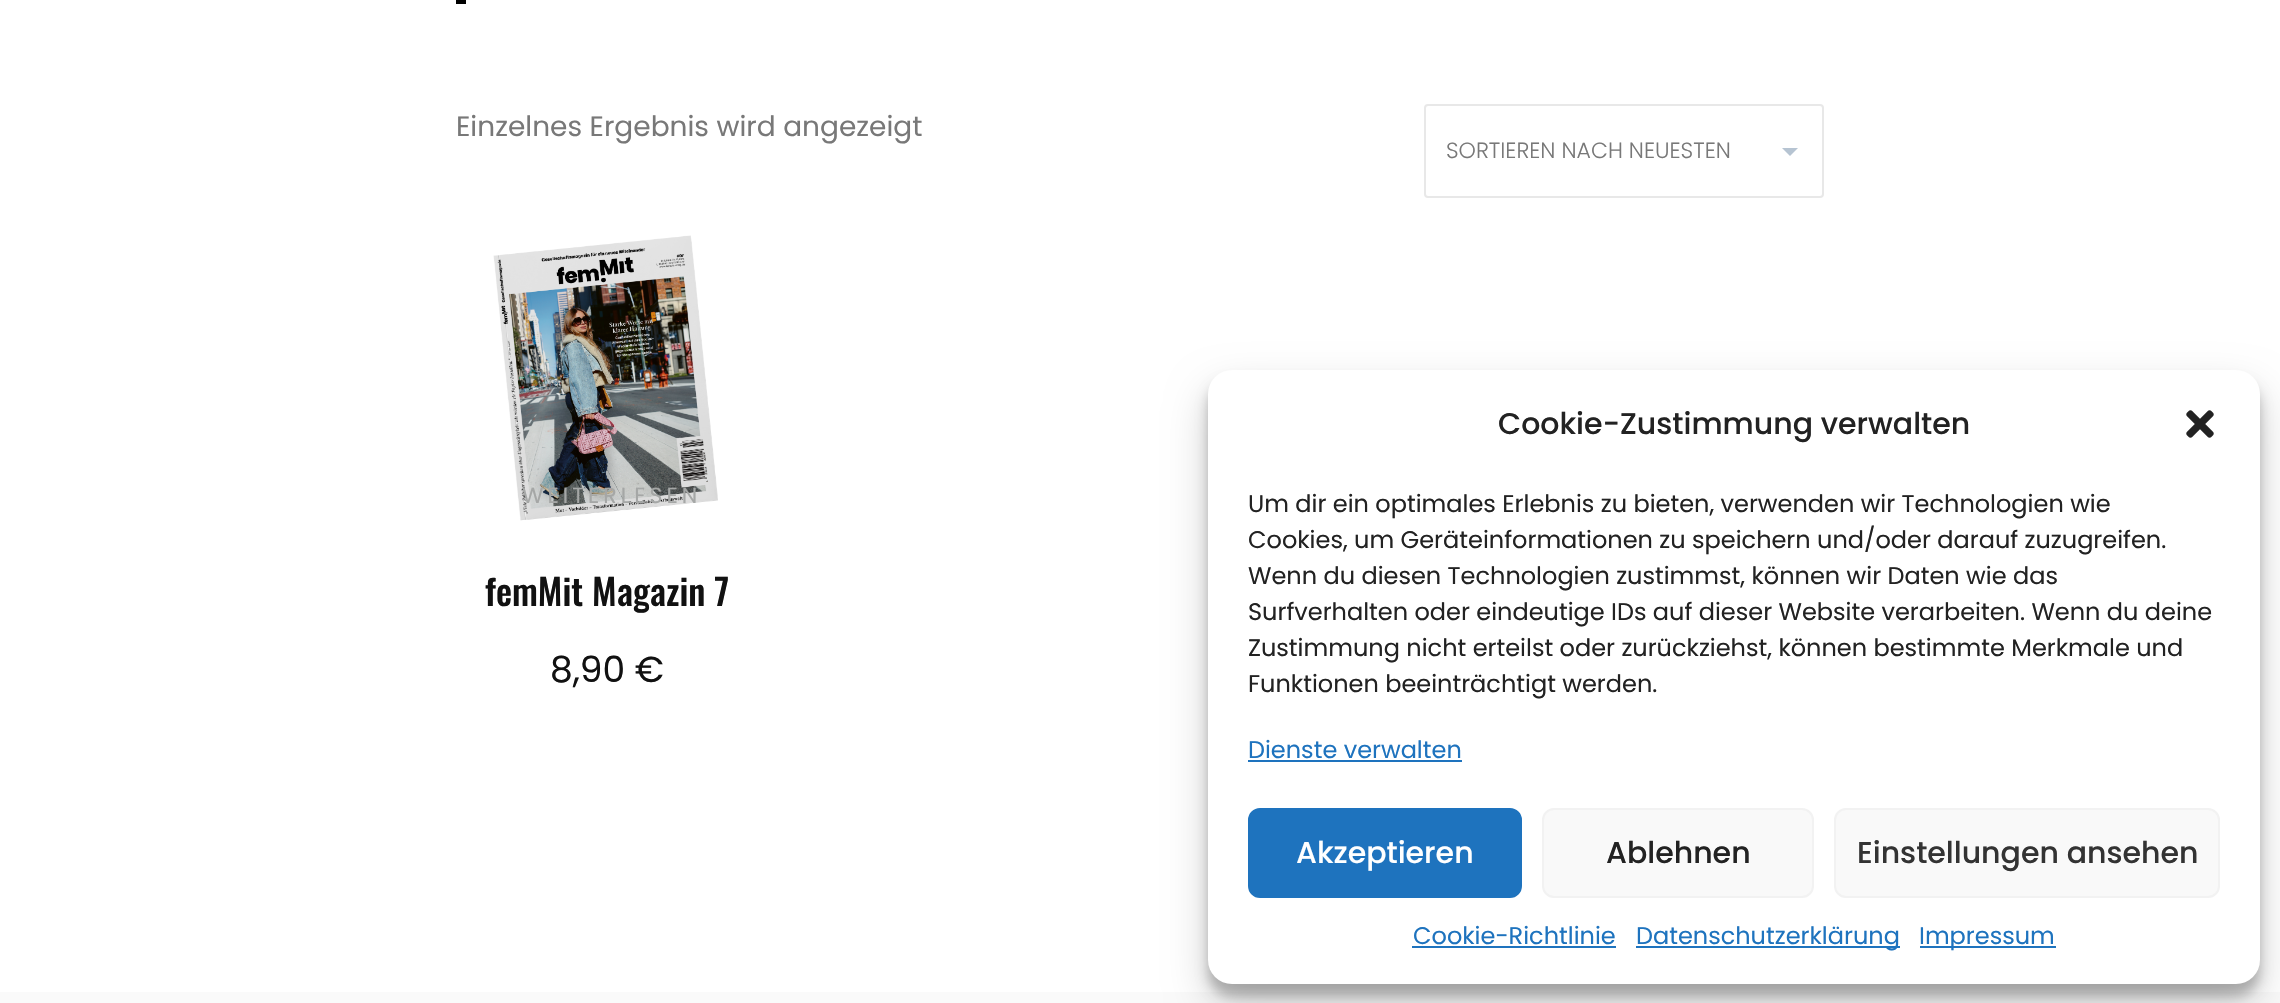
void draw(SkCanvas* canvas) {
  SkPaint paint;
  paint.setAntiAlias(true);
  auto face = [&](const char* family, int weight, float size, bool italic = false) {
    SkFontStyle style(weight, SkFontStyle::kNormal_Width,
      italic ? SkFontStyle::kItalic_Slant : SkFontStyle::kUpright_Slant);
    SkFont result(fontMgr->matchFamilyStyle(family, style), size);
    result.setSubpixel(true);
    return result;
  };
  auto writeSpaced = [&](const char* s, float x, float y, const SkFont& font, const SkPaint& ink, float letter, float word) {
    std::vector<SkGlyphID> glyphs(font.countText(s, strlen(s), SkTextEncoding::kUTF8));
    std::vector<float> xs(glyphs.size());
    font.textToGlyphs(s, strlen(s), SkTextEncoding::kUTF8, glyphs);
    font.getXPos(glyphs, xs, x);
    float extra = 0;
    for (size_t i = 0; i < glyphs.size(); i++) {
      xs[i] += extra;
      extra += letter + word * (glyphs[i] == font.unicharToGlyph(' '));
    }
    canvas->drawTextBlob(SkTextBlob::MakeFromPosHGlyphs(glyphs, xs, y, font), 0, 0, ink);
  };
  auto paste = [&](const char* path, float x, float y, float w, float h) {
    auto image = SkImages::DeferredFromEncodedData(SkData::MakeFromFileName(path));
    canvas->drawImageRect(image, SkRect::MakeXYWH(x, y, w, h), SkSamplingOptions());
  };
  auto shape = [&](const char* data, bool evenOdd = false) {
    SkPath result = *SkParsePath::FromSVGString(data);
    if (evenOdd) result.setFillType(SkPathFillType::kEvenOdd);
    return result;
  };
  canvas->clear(0xffffffff);
  paint.setColor(0xff000000);
  canvas->drawRect(SkRect::MakeXYWH(456, 0, 10, 4), paint);
  paint.setColor(0xffb6c4d2);
  canvas->drawPath(shape("M1782 148H1798L1790 156Z"), paint);
  paint.setStroke(true);
  paint.setStrokeWidth(2);
  paint.setColor(0xffe8e8e8);
  canvas->drawRoundRect(SkRect::MakeXYWH(1425, 105, 398, 92), 3, 3, paint);
  paste("img/1.png", 493, 235, 225, 286);
  paint.setStroke(false);
  paint.setColor(0xfffafafa);
  canvas->drawRect(SkRect::MakeXYWH(0, 992, 2280, 11), paint);
  paint.setColor(0x3b000000);
  paint.setMaskFilter(SkMaskFilter::MakeBlur(kNormal_SkBlurStyle, 6));
  canvas->drawRoundRect(SkRect::MakeXYWH(1208, 382, 1052, 614), 24, 24, paint);
  paint.setMaskFilter(nullptr);
  paint.setColor(0x30000000);
  paint.setMaskFilter(SkMaskFilter::MakeBlur(kNormal_SkBlurStyle, 20));
  canvas->drawRoundRect(SkRect::MakeXYWH(1208, 390, 1052, 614), 24, 24, paint);
  paint.setMaskFilter(nullptr);
  paint.setColor(0xffffffff);
  canvas->drawRoundRect(SkRect::MakeXYWH(1208, 370, 1052, 614), 24, 24, paint);
  paste("img/2.png", 2186, 410, 28, 28);
  paint.setColor(0xff1e73be);
  canvas->drawRect(SkRect::MakeXYWH(1248, 760, 214, 2), paint);
  canvas->drawRoundRect(SkRect::MakeXYWH(1249, 809, 272, 88), 11, 11, paint);
  paint.setStroke(true);
  canvas->drawRoundRect(SkRect::MakeXYWH(1249, 809, 272, 88), 11, 11, paint);
  paint.setStroke(false);
  paint.setColor(0xfff9f9f9);
  canvas->drawRoundRect(SkRect::MakeXYWH(1543, 809, 270, 88), 11, 11, paint);
  paint.setStroke(true);
  paint.setColor(0xfff2f2f2);
  canvas->drawRoundRect(SkRect::MakeXYWH(1543, 809, 270, 88), 11, 11, paint);
  paint.setStroke(false);
  paint.setColor(0xfff9f9f9);
  canvas->drawRoundRect(SkRect::MakeXYWH(1835, 809, 384, 88), 11, 11, paint);
  paint.setStroke(true);
  paint.setColor(0xfff2f2f2);
  canvas->drawRoundRect(SkRect::MakeXYWH(1835, 809, 384, 88), 11, 11, paint);
  paint.setStroke(false);
  {
    const struct { float x, y, w, h; SkColor color; } items[] = {
      {1412, 946, 204, 2, 0xff1e73be},
      {1636, 946, 264, 2, 0xff1e73be},
      {1920, 946, 136, 2, 0xff1e73be},
    };
    for (auto [x, y, w, h, color] : items) {
      paint.setColor(color);
      canvas->drawRect(SkRect::MakeXYWH(x, y, w, h), paint);
    }
  }
  auto f0 = face("Poppins", 400, 28);
  paint.setColor(0xff787878);
  canvas->drawString("Einzelnes Ergebnis wird angezeigt", 456, 136, f0, paint);
  auto f1 = face("Poppins", 300, 22);
  canvas->drawString("SORTIEREN NACH NEUESTEN", 1446, 158, f1, paint);
  auto f2 = face("Poppins", 400, 22);
  paint.setColor(0xffa5a7a6);
  writeSpaced("WEITERLESEN", 522, 503, f2, paint, 4, 0);
  auto f3 = face("Oswald", 500, 36);
  paint.setColor(0xff111111);
  canvas->drawString("femMit Magazin 7", 485, 606, f3, paint);
  auto f4 = face("Poppins", 400, 36);
  canvas->drawString("8,90 €", 550, 682, f4, paint);
  auto f5 = face("Poppins", 500, 30);
  paint.setColor(0xff222222);
  canvas->drawString("Cookie-Zustimmung verwalten", 1498, 434, f5, paint);
  auto f6 = face("Poppins", 400, 24);
  {
    const struct { const char* s; float x, y; } items[] = {
      {"Um dir ein optimales Erlebnis zu bieten, verwenden wir Technologien wie", 1248, 512},
      {"Cookies, um Geräteinformationen zu speichern und/oder darauf zuzugreifen.", 1248, 548},
      {"Wenn du diesen Technologien zustimmst, können wir Daten wie das", 1248, 584},
      {"Surfverhalten oder eindeutige IDs auf dieser Website verarbeiten. Wenn du deine", 1248, 620},
      {"Zustimmung nicht erteilst oder zurückziehst, können bestimmte Merkmale und", 1248, 656},
      {"Funktionen beeinträchtigt werden.", 1248, 692},
    };
    for (auto [s, x, y] : items) {
      canvas->drawString(s, x, y, f6, paint);
    }
  }
  paint.setColor(0xff1e73be);
  canvas->drawString("Dienste verwalten", 1248, 758, f6, paint);
  paint.setColor(0xffffffff);
  canvas->drawString("Akzeptieren", 1296, 863, f5, paint);
  paint.setColor(0xff222222);
  canvas->drawString("Ablehnen", 1606, 863, f5, paint);
  paint.setColor(0xff333333);
  canvas->drawString("Einstellungen ansehen", 1857, 863, f5, paint);
  paint.setColor(0xff1e73be);
  {
    const struct { const char* s; float x, y; } items[] = {
      {"Cookie-Richtlinie", 1413, 944},
      {"Datenschutzerklärung", 1636, 944},
      {"Impressum", 1919, 944},
    };
    for (auto [s, x, y] : items) {
      canvas->drawString(s, x, y, f6, paint);
    }
  }
}
